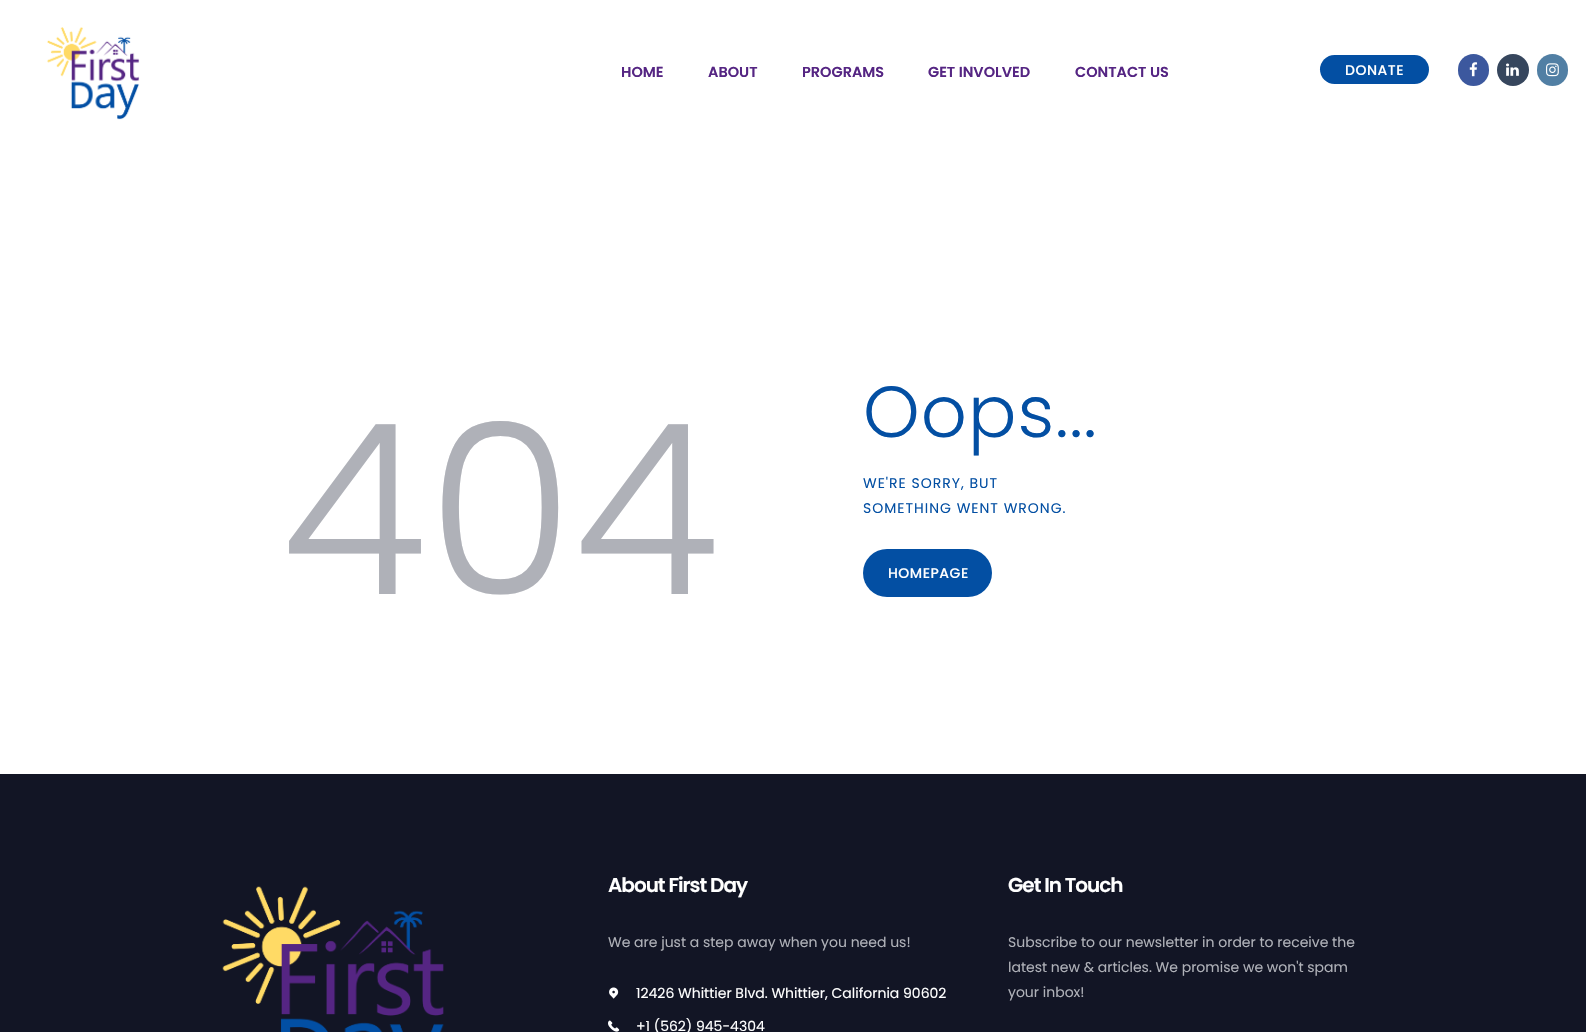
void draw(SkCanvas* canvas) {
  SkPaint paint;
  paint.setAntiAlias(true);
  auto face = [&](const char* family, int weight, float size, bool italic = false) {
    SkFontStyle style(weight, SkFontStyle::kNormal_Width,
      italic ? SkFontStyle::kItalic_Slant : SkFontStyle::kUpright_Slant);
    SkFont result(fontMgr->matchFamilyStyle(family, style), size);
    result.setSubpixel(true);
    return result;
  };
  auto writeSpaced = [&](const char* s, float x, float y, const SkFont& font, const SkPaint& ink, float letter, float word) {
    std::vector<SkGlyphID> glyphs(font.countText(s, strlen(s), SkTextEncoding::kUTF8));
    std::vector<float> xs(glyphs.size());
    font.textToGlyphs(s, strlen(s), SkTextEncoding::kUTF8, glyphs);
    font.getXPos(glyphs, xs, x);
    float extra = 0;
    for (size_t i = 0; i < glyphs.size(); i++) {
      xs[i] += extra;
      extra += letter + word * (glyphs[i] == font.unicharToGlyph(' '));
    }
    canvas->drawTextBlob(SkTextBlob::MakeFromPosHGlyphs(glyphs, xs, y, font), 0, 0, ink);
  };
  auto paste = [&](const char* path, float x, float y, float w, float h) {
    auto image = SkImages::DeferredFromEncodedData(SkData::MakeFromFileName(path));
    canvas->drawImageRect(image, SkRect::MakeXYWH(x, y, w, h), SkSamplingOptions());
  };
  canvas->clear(0xffffffff);
  paste("img/1.png", 47, 27, 93, 93);
  paint.setColor(0xff034fa3);
  canvas->drawRoundRect(SkRect::MakeXYWH(1320, 55, 109, 29), 14.5f, 14.5f, paint);
  paint.setColor(0xff3c589e);
  canvas->drawRoundRect(SkRect::MakeXYWH(1458, 54, 31, 32), 15.5f, 15.5f, paint);
  paste("img/2.png", 1469, 62, 9, 15);
  paint.setColor(0xff36465d);
  canvas->drawCircle(1513, 70, 16, paint);
  paste("img/3.png", 1506, 63, 13, 13);
  paint.setColor(0xff517fa4);
  canvas->drawRoundRect(SkRect::MakeXYWH(1537, 54, 31, 32), 15.5f, 15.5f, paint);
  paste("img/4.png", 1546, 63, 13, 14);
  paint.setColor(0xff034fa3);
  canvas->drawRoundRect(SkRect::MakeXYWH(863, 549, 129, 48), 24, 24, paint);
  paint.setColor(0xff121525);
  canvas->drawRect(SkRect::MakeXYWH(0, 774, 1586, 258), paint);
  paste("img/5.png", 222, 886, 222, 146);
  paste("img/6.png", 609, 987, 10, 12);
  paste("img/7.png", 608, 1020, 12, 12);
  auto f0 = face("Poppins", 600, 14.5f);
  paint.setColor(0xff552583);
  {
    const struct { const char* s; float x, y; } items[] = {
      {"HOME", 621, 77},
      {"ABOUT", 708, 77},
      {"PROGRAMS", 802, 77},
      {"GET INVOLVED", 928, 77},
      {"CONTACT US", 1075, 77},
    };
    for (auto [s, x, y] : items) {
      canvas->drawString(s, x, y, f0, paint);
    }
  }
  auto f1 = face("Poppins", 500, 14);
  paint.setColor(0xffffffff);
  writeSpaced("DONATE", 1345, 75, f1, paint, 0.5f, 0);
  auto f2 = face("Poppins", 300, 238);
  paint.setColor(0xffafb1b8);
  canvas->drawString("404", 281, 594, f2, paint);
  auto f3 = face("Poppins", 300, 72);
  paint.setColor(0xff034fa3);
  writeSpaced("Oops...", 863, 437, f3, paint, 1, 0);
  auto f4 = face("Poppins", 400, 14);
  writeSpaced("WE'RE SORRY, BUT", 863, 488, f4, paint, 1, 0);
  writeSpaced("SOMETHING WENT WRONG.", 863, 513, f4, paint, 1, 0);
  paint.setColor(0xffffffff);
  writeSpaced("HOMEPAGE", 888, 578, f1, paint, 0.5f, 0);
  auto f5 = face("Poppins", 600, 20);
  writeSpaced("About First Day", 608, 892, f5, paint, -1, 0);
  paint.setColor(0xffafb1b8);
  canvas->drawString("We are just a step away when you need us!", 608, 947, f4, paint);
  paint.setColor(0xffffffff);
  canvas->drawString("12426 Whittier Blvd. Whittier, California 90602", 636, 998, f4, paint);
  canvas->drawString("+1 (562) 945-4304", 636, 1031, f4, paint);
  writeSpaced("Get In Touch", 1008, 892, f5, paint, -1, 0);
  paint.setColor(0xffafb1b8);
  {
    const struct { const char* s; float x, y; } items[] = {
      {"Subscribe to our newsletter in order to receive the", 1008, 947},
      {"latest new & articles. We promise we won't spam", 1008, 972},
      {"your inbox!", 1008, 997},
    };
    for (auto [s, x, y] : items) {
      canvas->drawString(s, x, y, f4, paint);
    }
  }
}
